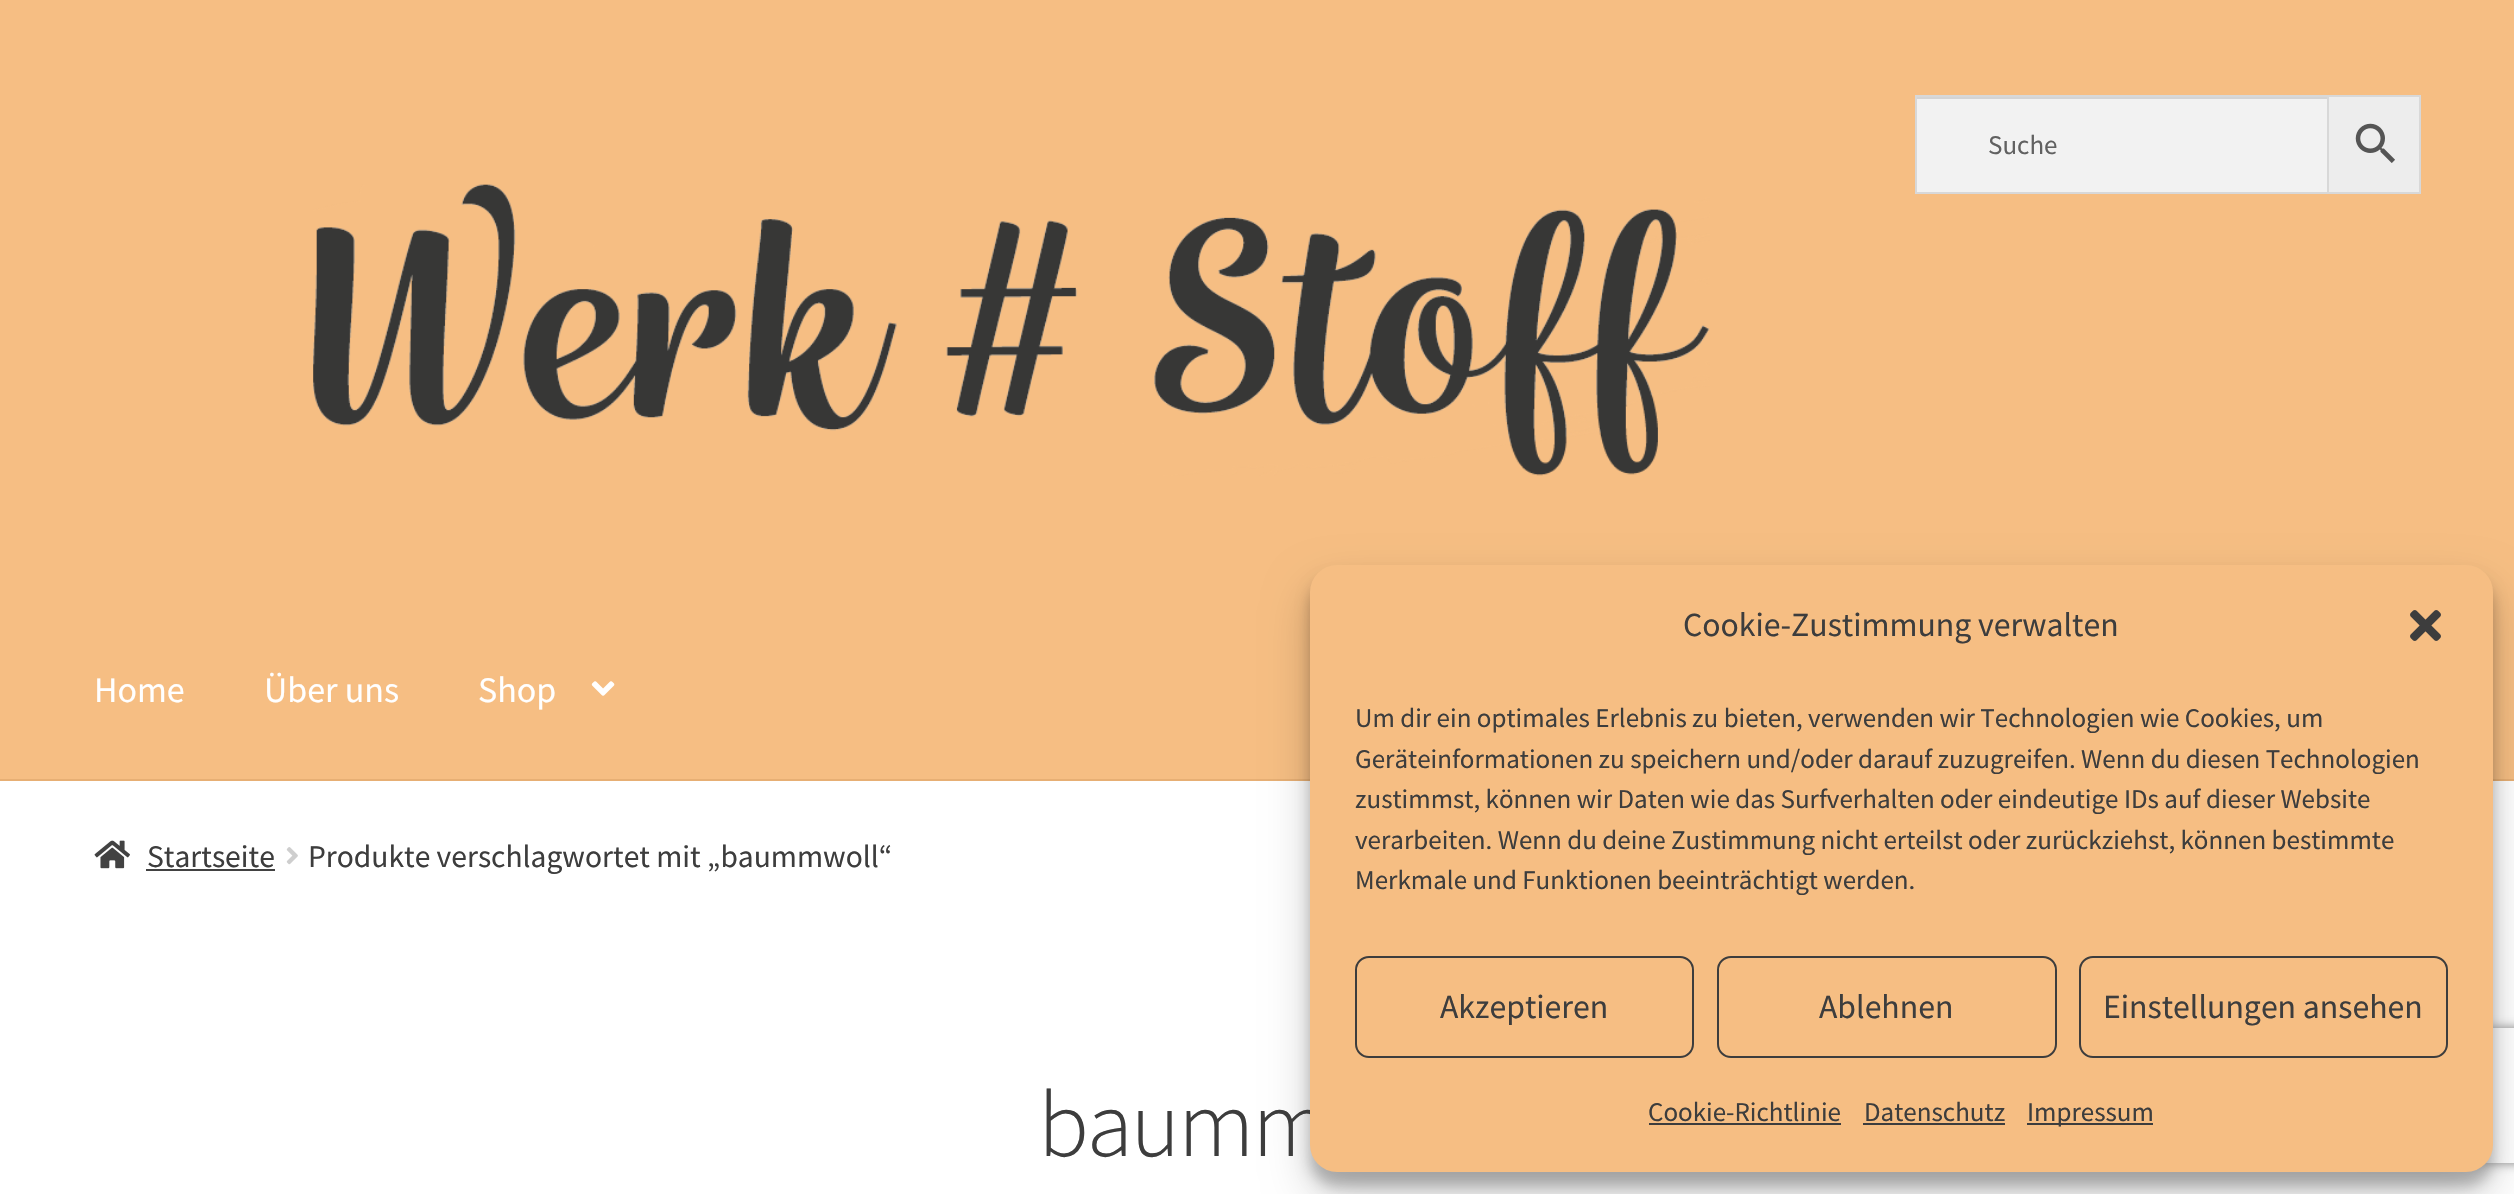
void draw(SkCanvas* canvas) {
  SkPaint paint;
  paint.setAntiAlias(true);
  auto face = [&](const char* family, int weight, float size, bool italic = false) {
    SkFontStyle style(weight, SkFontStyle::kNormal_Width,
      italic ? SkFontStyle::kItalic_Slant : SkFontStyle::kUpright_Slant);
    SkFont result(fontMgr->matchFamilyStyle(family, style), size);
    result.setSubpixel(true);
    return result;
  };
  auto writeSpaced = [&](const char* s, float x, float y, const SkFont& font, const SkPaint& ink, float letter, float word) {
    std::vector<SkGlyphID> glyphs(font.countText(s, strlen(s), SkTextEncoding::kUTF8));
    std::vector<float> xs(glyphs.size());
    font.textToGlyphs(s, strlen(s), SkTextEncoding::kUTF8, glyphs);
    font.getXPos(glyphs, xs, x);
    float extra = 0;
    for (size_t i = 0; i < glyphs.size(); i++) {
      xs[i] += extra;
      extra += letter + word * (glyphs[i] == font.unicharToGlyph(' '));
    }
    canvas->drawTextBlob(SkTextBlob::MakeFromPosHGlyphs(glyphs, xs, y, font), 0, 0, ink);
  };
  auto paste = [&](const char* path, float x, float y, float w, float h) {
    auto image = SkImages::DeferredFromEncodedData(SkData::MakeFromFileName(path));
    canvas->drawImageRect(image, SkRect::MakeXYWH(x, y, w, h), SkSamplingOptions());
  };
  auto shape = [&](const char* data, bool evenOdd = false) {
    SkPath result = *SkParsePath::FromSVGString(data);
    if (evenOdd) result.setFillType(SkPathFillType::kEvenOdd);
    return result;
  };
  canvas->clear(0xffffffff);
  {
    const struct { float x, y, w, h; SkColor color; } items[] = {
      {0, 0, 2514, 779, 0xfff6be83},
      {0, 779, 2514, 2, 0xffe7af74},
      {1917, 99, 410, 93, 0xfff2f2f2},
      {1917, 97, 410, 2, 0xffd4d4d4},
    };
    for (auto [x, y, w, h, color] : items) {
      paint.setColor(color);
      canvas->drawRect(SkRect::MakeXYWH(x, y, w, h), paint);
    }
  }
  paint.setColor(0xffededed);
  canvas->drawRect(SkRect::MakeXYWH(2328, 96, 92, 97), paint);
  paint.setStroke(true);
  paint.setStrokeWidth(2);
  paint.setColor(0xffd8d8d8);
  canvas->drawRect(SkRect::MakeXYWH(2328, 96, 92, 97), paint);
  canvas->drawRect(SkRect::MakeXYWH(1916, 96, 412, 97), paint);
  paste("img/1.png", 2355, 123, 40, 40);
  paste("img/2.png", 313, 184, 1397, 292);
  paste("img/3.png", 591, 681, 24, 15);
  paste("img/4.png", 94, 840, 36, 29);
  paint.setStroke(false);
  paint.setColor(0xff424242);
  canvas->drawRect(SkRect::MakeXYWH(146, 869, 129, 2), paint);
  paste("img/5.png", 286, 847, 12, 18);
  paint.setColor(0x3b000000);
  paint.setMaskFilter(SkMaskFilter::MakeBlur(kNormal_SkBlurStyle, 7));
  canvas->drawRoundRect(SkRect::MakeXYWH(1310, 578, 1183, 608), 27, 27, paint);
  paint.setMaskFilter(nullptr);
  paint.setColor(0x30000000);
  paint.setMaskFilter(SkMaskFilter::MakeBlur(kNormal_SkBlurStyle, 22.5f));
  canvas->drawRoundRect(SkRect::MakeXYWH(1310, 587, 1183, 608), 27, 27, paint);
  paint.setMaskFilter(nullptr);
  canvas->save();
  canvas->clipPath(shape("M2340 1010H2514V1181H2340ZM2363 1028H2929C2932 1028 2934 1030 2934 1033V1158C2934 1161 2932 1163 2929 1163H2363C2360 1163 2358 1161 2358 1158V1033C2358 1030 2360 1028 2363 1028Z", true), true);
  paint.setColor(0xff808080);
  paint.setMaskFilter(SkMaskFilter::MakeBlur(kNormal_SkBlurStyle, 5.5f));
  canvas->drawRoundRect(SkRect::MakeXYWH(2358, 1028, 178, 135), 5, 5, paint);
  paint.setMaskFilter(nullptr);
  canvas->restore();
  auto f0 = face("Source Sans Pro", 400, 27);
  paint.setColor(0xff616161);
  canvas->drawString("Suche", 1988, 154, f0, paint);
  auto f1 = face("Source Sans Pro", 400, 36);
  paint.setColor(0xffffffff);
  {
    const struct { const char* s; float x, y; } items[] = {
      {"Home", 94, 702},
      {"Über uns", 264, 702},
      {"Shop", 478, 702},
    };
    for (auto [s, x, y] : items) {
      canvas->drawString(s, x, y, f1, paint);
    }
  }
  auto f2 = face("Source Sans Pro", 400, 31.5f);
  paint.setColor(0xff3d3d3d);
  canvas->drawString("Startseite", 147, 867, f2, paint);
  canvas->drawString("Produkte verschlagwortet mit „baummwoll“", 308, 867, f2, paint);
  auto f3 = face("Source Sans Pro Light", 300, 94);
  writeSpaced("baumm", 1038, 1156, f3, paint, -2.25f, 0);
  paint.setColor(0xfff6be83);
  canvas->drawRoundRect(SkRect::MakeXYWH(1310, 565, 1183, 607), 27, 27, paint);
  auto f4 = face("Source Sans Pro", 400, 33.75f);
  paint.setColor(0xff3d3d3d);
  canvas->drawString("Cookie-Zustimmung verwalten", 1683, 636, f4, paint);
  paste("img/6.png", 2410, 610, 31, 31);
  {
    const struct { const char* s; float x, y; } items[] = {
      {"Um dir ein optimales Erlebnis zu bieten, verwenden wir Technologien wie Cookies, um", 1355, 727},
      {"Geräteinformationen zu speichern und/oder darauf zuzugreifen. Wenn du diesen Technologien", 1355, 768},
      {"zustimmst, können wir Daten wie das Surfverhalten oder eindeutige IDs auf dieser Website", 1355, 808},
      {"verarbeiten. Wenn du deine Zustimmung nicht erteilst oder zurückziehst, können bestimmte", 1355, 849},
      {"Merkmale und Funktionen beeinträchtigt werden.", 1355, 889},
    };
    for (auto [s, x, y] : items) {
      canvas->drawString(s, x, y, f0, paint);
    }
  }
  paint.setStroke(true);
  canvas->drawRoundRect(SkRect::MakeXYWH(1356, 957, 337, 100), 13, 13, paint);
  paint.setStroke(false);
  canvas->drawString("Akzeptieren", 1440, 1018, f4, paint);
  paint.setStroke(true);
  canvas->drawRoundRect(SkRect::MakeXYWH(1718, 957, 338, 100), 13, 13, paint);
  paint.setStroke(false);
  canvas->drawString("Ablehnen", 1819, 1018, f4, paint);
  paint.setStroke(true);
  canvas->drawRoundRect(SkRect::MakeXYWH(2080, 957, 367, 100), 13, 13, paint);
  paint.setStroke(false);
  canvas->drawString("Einstellungen ansehen", 2103, 1018, f4, paint);
  canvas->drawString("Cookie-Richtlinie", 1648, 1121, f0, paint);
  canvas->drawRect(SkRect::MakeXYWH(1649, 1123, 192, 2), paint);
  canvas->drawString("Datenschutz", 1864, 1121, f0, paint);
  canvas->drawRect(SkRect::MakeXYWH(1863, 1123, 142, 2), paint);
  canvas->drawRect(SkRect::MakeXYWH(2027, 1123, 126, 2), paint);
  canvas->drawString("Impressum", 2027, 1121, f0, paint);
}
